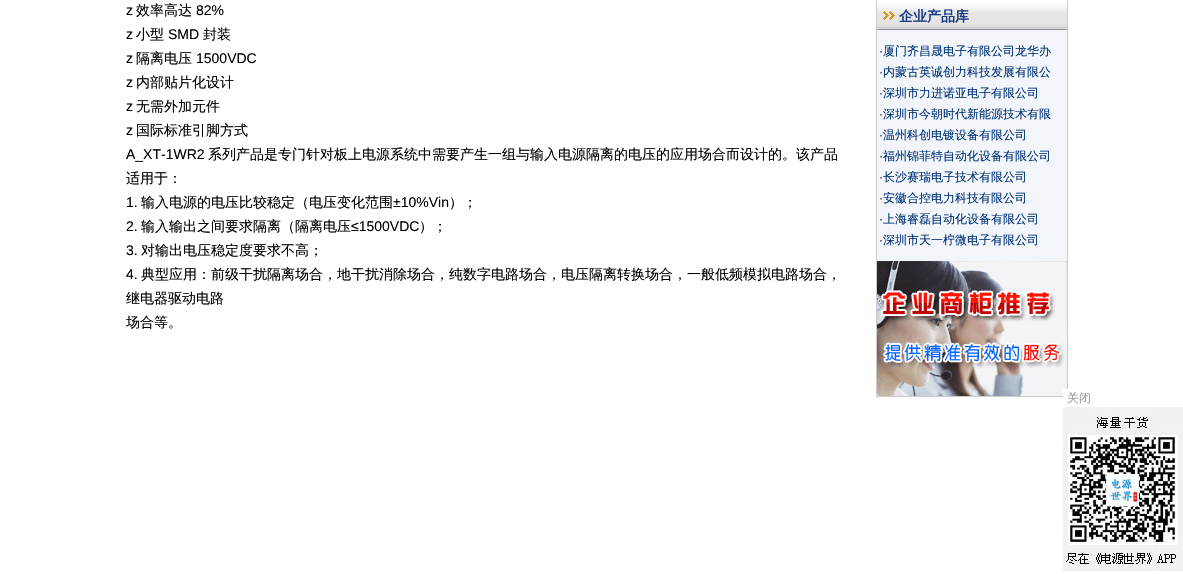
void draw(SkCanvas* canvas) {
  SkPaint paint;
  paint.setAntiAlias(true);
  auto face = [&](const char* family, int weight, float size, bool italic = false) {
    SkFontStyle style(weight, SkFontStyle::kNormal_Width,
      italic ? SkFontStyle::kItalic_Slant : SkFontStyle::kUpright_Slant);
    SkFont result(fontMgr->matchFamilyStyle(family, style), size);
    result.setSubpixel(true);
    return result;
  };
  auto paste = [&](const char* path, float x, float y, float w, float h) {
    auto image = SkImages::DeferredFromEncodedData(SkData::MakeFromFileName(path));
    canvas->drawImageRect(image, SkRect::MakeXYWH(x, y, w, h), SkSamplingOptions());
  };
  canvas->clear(0xffffffff);
  {
    const struct { float x, y, w, h; SkColor color; } items[] = {
      {1067, 0, 1, 397, 0xffcccccc},
      {876, 396, 192, 1, 0xffcccccc},
      {876, 0, 1, 397, 0xffcccccc},
      {877, 30, 190, 231, 0xfff2f6fb},
    };
    for (auto [x, y, w, h, color] : items) {
      paint.setColor(color);
      canvas->drawRect(SkRect::MakeXYWH(x, y, w, h), paint);
    }
  }
  paste("img/1.png", 877, 0, 190, 30);
  paste("img/2.png", 883, 11, 12, 9);
  paint.setColor(0xffcccccc);
  canvas->drawRect(SkRect::MakeXYWH(877, 27, 190, 1), paint);
  paste("img/3.png", 877, 261, 190, 135);
  paint.setColor(0xffffffff);
  canvas->drawRect(SkRect::MakeXYWH(1063, 389, 5, 8), paint);
  paste("img/4.png", 1063, 407, 120, 164);
  auto f0 = face("Liberation Sans", 400, 14);
  paint.setColor(0xff000000);
  canvas->drawString("z", 126, 15, f0, paint);
  auto f1 = face("WenQuanYi Zen Hei", 500, 14);
  canvas->drawString("效率高达", 136, 15, f1, paint);
  canvas->drawString("82%", 196, 15, f0, paint);
  canvas->drawString("z", 126, 39, f0, paint);
  canvas->drawString("小型", 136, 39, f1, paint);
  canvas->drawString("SMD", 168, 39, f0, paint);
  canvas->drawString("封装", 203, 39, f1, paint);
  canvas->drawString("z", 126, 63, f0, paint);
  canvas->drawString("隔离电压", 136, 63, f1, paint);
  canvas->drawString("1500VDC", 196, 63, f0, paint);
  canvas->drawString("z", 126, 87, f0, paint);
  canvas->drawString("内部贴片化设计", 136, 87, f1, paint);
  canvas->drawString("z", 126, 111, f0, paint);
  canvas->drawString("无需外加元件", 136, 111, f1, paint);
  canvas->drawString("z", 126, 135, f0, paint);
  canvas->drawString("国际标准引脚方式", 136, 135, f1, paint);
  canvas->drawString("A_XT-1WR2", 126, 159, f0, paint);
  canvas->drawString("系列产品是专门针对板上电源系统中需要产生一组与输入电源隔离的电压的应用场合而设计的。该产品", 208, 159, f1, paint);
  canvas->drawString("适用于：", 126, 183, f1, paint);
  canvas->drawString("1.", 126, 207, f0, paint);
  canvas->drawString("输入电源的电压比较稳定（电压变化范围", 141, 207, f1, paint);
  canvas->drawString("±10%Vin", 393, 207, f0, paint);
  canvas->drawString("）；", 449, 207, f1, paint);
  canvas->drawString("2.", 126, 231, f0, paint);
  canvas->drawString("输入输出之间要求隔离（隔离电压", 141, 231, f1, paint);
  canvas->drawString("≤1500VDC", 351, 231, f0, paint);
  canvas->drawString("）；", 419, 231, f1, paint);
  canvas->drawString("3.", 126, 255, f0, paint);
  canvas->drawString("对输出电压稳定度要求不高；", 141, 255, f1, paint);
  canvas->drawString("4.", 126, 279, f0, paint);
  canvas->drawString("典型应用：前级干扰隔离场合，地干扰消除场合，纯数字电路场合，电压隔离转换场合，一般低频模拟电路场合，", 141, 279, f1, paint);
  canvas->drawString("继电器驱动电路", 126, 303, f1, paint);
  canvas->save();
  canvas->clipRect(SkRect::MakeXYWH(126, 0, 720, 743));
  canvas->drawString("场合等。", 126, 327, f1, paint);
  canvas->restore();
  auto f2 = face("WenQuanYi Zen Hei", 700, 14);
  paint.setColor(0xff1a3c84);
  canvas->drawString("企业产品库", 899, 21, f2, paint);
  auto f3 = face("Liberation Sans", 400, 12);
  canvas->drawString("·", 879, 55, f3, paint);
  auto f4 = face("WenQuanYi Zen Hei", 500, 12);
  paint.setColor(0xff003278);
  canvas->drawString("厦门齐昌晟电子有限公司龙华办", 883, 55, f4, paint);
  paint.setColor(0xff1a3c84);
  canvas->drawString("·", 879, 76, f3, paint);
  paint.setColor(0xff003278);
  canvas->drawString("内蒙古英诚创力科技发展有限公", 883, 76, f4, paint);
  paint.setColor(0xff1a3c84);
  canvas->drawString("·", 879, 97, f3, paint);
  paint.setColor(0xff003278);
  canvas->drawString("深圳市力进诺亚电子有限公司", 883, 97, f4, paint);
  paint.setColor(0xff1a3c84);
  canvas->drawString("·", 879, 118, f3, paint);
  paint.setColor(0xff003278);
  canvas->drawString("深圳市今朝时代新能源技术有限", 883, 118, f4, paint);
  paint.setColor(0xff1a3c84);
  canvas->drawString("·", 879, 139, f3, paint);
  paint.setColor(0xff003278);
  canvas->drawString("温州科创电镀设备有限公司", 883, 139, f4, paint);
  paint.setColor(0xff1a3c84);
  canvas->drawString("·", 879, 160, f3, paint);
  paint.setColor(0xff003278);
  canvas->drawString("福州锦菲特自动化设备有限公司", 883, 160, f4, paint);
  paint.setColor(0xff1a3c84);
  canvas->drawString("·", 879, 181, f3, paint);
  paint.setColor(0xff003278);
  canvas->drawString("长沙赛瑞电子技术有限公司", 883, 181, f4, paint);
  paint.setColor(0xff1a3c84);
  canvas->drawString("·", 879, 202, f3, paint);
  paint.setColor(0xff003278);
  canvas->drawString("安徽合控电力科技有限公司", 883, 202, f4, paint);
  paint.setColor(0xff1a3c84);
  canvas->drawString("·", 879, 223, f3, paint);
  paint.setColor(0xff003278);
  canvas->drawString("上海睿磊自动化设备有限公司", 883, 223, f4, paint);
  paint.setColor(0xff1a3c84);
  canvas->drawString("·", 879, 244, f3, paint);
  paint.setColor(0xff003278);
  canvas->drawString("深圳市天一柠微电子有限公司", 883, 244, f4, paint);
  paint.setColor(0xff999999);
  canvas->drawString("关闭", 1067, 402, f4, paint);
}
